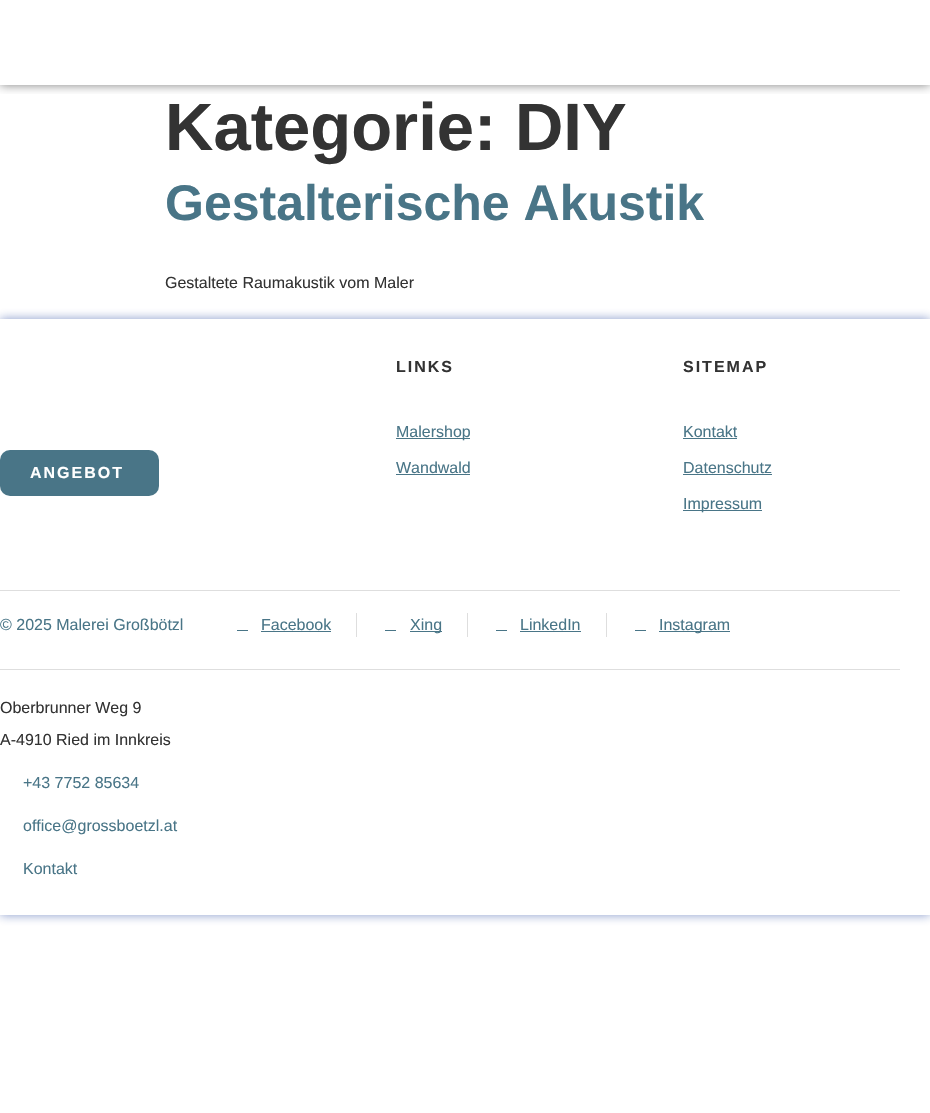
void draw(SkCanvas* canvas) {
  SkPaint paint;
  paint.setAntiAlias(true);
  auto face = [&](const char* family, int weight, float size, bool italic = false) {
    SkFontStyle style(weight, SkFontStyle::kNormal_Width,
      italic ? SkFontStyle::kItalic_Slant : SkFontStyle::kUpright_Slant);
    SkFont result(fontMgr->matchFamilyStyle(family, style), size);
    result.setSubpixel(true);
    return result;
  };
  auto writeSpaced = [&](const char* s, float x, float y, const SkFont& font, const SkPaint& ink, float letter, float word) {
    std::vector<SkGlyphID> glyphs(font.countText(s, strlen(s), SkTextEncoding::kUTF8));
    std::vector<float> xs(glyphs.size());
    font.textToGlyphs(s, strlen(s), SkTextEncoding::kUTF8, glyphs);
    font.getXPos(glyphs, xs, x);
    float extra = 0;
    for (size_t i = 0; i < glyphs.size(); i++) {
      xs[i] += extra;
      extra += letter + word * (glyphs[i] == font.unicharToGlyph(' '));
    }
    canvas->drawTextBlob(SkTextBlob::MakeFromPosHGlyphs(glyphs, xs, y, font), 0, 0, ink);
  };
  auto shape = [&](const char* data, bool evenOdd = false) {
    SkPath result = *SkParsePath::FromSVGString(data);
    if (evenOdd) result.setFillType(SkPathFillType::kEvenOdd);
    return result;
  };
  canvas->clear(0xffffffff);
  canvas->save();
  canvas->clipRect(SkRect::MakeXYWH(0, 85, 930, 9));
  paint.setColor(0x80000000);
  paint.setMaskFilter(SkMaskFilter::MakeBlur(kNormal_SkBlurStyle, 5));
  canvas->drawRect(SkRect::MakeXYWH(0, 0, 930, 85), paint);
  paint.setMaskFilter(nullptr);
  canvas->restore();
  canvas->save();
  canvas->clipPath(shape("M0 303H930V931H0ZM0 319H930V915H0Z", true), true);
  paint.setColor(0x800c3094);
  paint.setMaskFilter(SkMaskFilter::MakeBlur(kNormal_SkBlurStyle, 5));
  canvas->drawRect(SkRect::MakeXYWH(0, 319, 930, 596), paint);
  paint.setMaskFilter(nullptr);
  canvas->restore();
  paint.setColor(0xff497587);
  canvas->drawRoundRect(SkRect::MakeXYWH(0, 450, 159, 46), 10, 10, paint);
  {
    const struct { float x, y, w, h; SkColor color; } items[] = {
      {396, 438, 74, 1, 0xff497587},
      {396, 474, 74, 1, 0xff497587},
      {683, 438, 54, 1, 0xff497587},
      {683, 474, 89, 1, 0xff497587},
      {683, 510, 79, 1, 0xff497587},
      {0, 590, 900, 1, 0xffdedede},
      {237, 630, 11, 1, 0xff497587},
      {261, 631, 70, 1, 0xff497587},
      {356, 613, 1, 24, 0xffdedede},
      {385, 630, 11, 1, 0xff497587},
      {410, 631, 32, 1, 0xff497587},
      {467, 613, 1, 24, 0xffdedede},
      {496, 630, 11, 1, 0xff497587},
      {520, 631, 61, 1, 0xff497587},
      {606, 613, 1, 24, 0xffdedede},
      {635, 630, 11, 1, 0xff497587},
      {659, 631, 71, 1, 0xff497587},
      {0, 669, 900, 1, 0xffdedede},
    };
    for (auto [x, y, w, h, color] : items) {
      paint.setColor(color);
      canvas->drawRect(SkRect::MakeXYWH(x, y, w, h), paint);
    }
  }
  auto f0 = face("Liberation Sans", 700, 67);
  paint.setColor(0xff333333);
  canvas->drawString("Kategorie: DIY", 165, 150, f0, paint);
  auto f1 = face("Liberation Sans", 700, 50);
  paint.setColor(0xff497587);
  canvas->drawString("Gestalterische Akustik", 165, 220, f1, paint);
  auto f2 = face("Liberation Sans", 400, 16);
  paint.setColor(0xff333333);
  canvas->drawString("Gestaltete Raumakustik vom Maler", 165, 288, f2, paint);
  auto f3 = face("Liberation Sans", 700, 16);
  paint.setColor(0xffffffff);
  writeSpaced("ANGEBOT", 30, 478, f3, paint, 2, 0);
  paint.setColor(0xff333333);
  writeSpaced("LINKS", 396, 372, f3, paint, 2, 0);
  paint.setColor(0xff497587);
  canvas->drawString("Malershop", 396, 437, f2, paint);
  canvas->drawString("Wandwald", 396, 473, f2, paint);
  paint.setColor(0xff333333);
  writeSpaced("SITEMAP", 683, 372, f3, paint, 2, 0);
  paint.setColor(0xff497587);
  {
    const struct { const char* s; float x, y; } items[] = {
      {"Kontakt", 683, 437},
      {"Datenschutz", 683, 473},
      {"Impressum", 683, 509},
      {"© 2025 Malerei Großbötzl", 0, 630},
      {"Facebook", 261, 630},
      {"Xing", 410, 630},
      {"LinkedIn", 520, 630},
      {"Instagram", 659, 630},
    };
    for (auto [s, x, y] : items) {
      canvas->drawString(s, x, y, f2, paint);
    }
  }
  paint.setColor(0xff333333);
  canvas->drawString("Oberbrunner Weg 9", 0, 713, f2, paint);
  canvas->drawString("A-4910 Ried im Innkreis", 0, 745, f2, paint);
  paint.setColor(0xff497587);
  {
    const struct { const char* s; float x, y; } items[] = {
      {"+43 7752 85634", 23, 788},
      {"office@grossboetzl.at", 23, 831},
      {"Kontakt", 23, 874},
    };
    for (auto [s, x, y] : items) {
      canvas->drawString(s, x, y, f2, paint);
    }
  }
}
